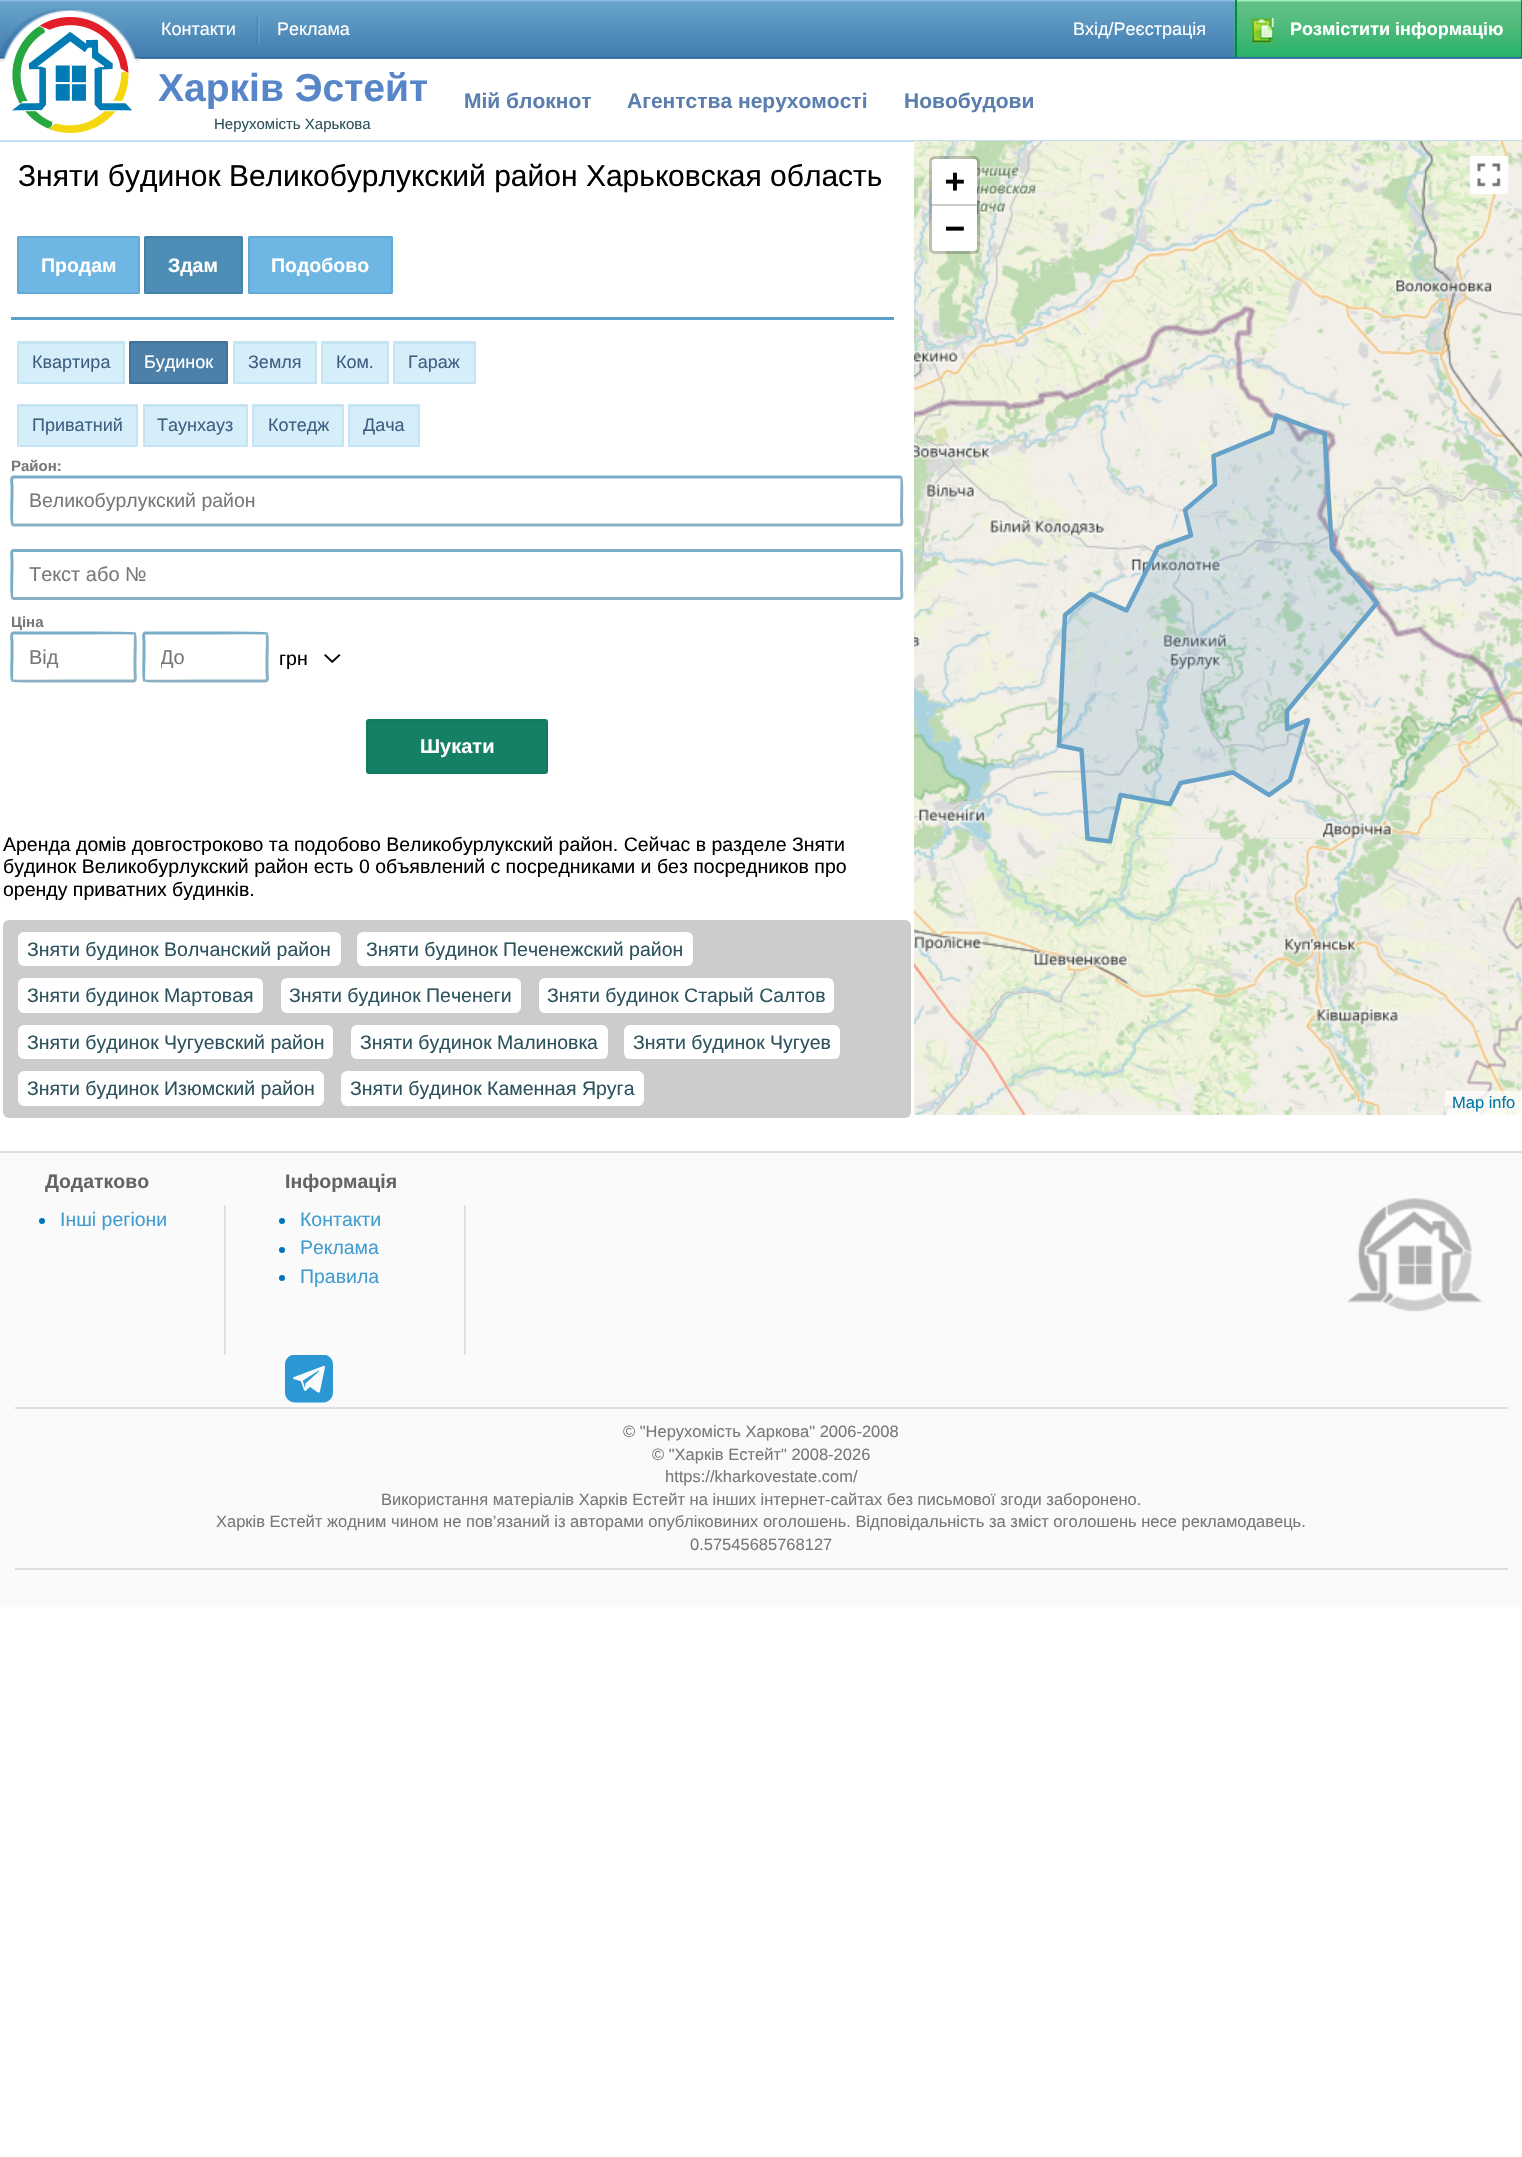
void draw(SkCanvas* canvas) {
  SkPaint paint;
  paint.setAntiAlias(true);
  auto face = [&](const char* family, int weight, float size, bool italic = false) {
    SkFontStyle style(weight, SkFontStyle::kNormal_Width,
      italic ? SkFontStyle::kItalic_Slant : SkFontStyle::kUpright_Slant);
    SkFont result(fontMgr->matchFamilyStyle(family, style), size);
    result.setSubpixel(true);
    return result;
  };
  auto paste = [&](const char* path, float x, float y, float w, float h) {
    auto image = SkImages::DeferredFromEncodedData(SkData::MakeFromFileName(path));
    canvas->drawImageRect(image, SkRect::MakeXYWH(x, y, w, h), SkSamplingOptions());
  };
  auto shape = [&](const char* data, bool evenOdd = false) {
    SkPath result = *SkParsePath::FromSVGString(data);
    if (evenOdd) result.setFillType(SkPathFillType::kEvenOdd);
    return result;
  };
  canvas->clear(0xffffffff);
  paint.setColor(0xff698eb9);
  canvas->drawRect(SkRect::MakeXYWH(139, 58, 1383, 1), paint);
  paste("img/1.png", 0, 0, 1522, 59);
  paste("img/2.png", 256, 15, 4, 30);
  paste("img/3.png", 1234, 0, 287, 57);
  paint.setColor(0xff008944);
  canvas->drawRect(SkRect::MakeXYWH(1521, 0, 1, 57), paint);
  canvas->drawRect(SkRect::MakeXYWH(1235, 0, 2, 57), paint);
  paste("img/4.png", 1251, 18, 23, 26);
  paint.setColor(0xffc6dcf4);
  canvas->drawRect(SkRect::MakeXYWH(0, 140, 1522, 2), paint);
  paste("img/5.png", 0, 9, 140, 54);
  paste("img/6.png", 12, 16, 120, 117);
  paste("img/7.png", 139, 58, 1, 3);
  paint.setColor(0xff5c9fc8);
  canvas->drawRect(SkRect::MakeXYWH(11, 317, 883, 3), paint);
  paint.setColor(0xff6eb7e5);
  canvas->drawRoundRect(SkRect::MakeXYWH(18, 237, 121, 56), 0.5f, 0.5f, paint);
  paint.setStroke(true);
  paint.setStrokeWidth(2);
  paint.setColor(0xff62a9d6);
  canvas->drawRoundRect(SkRect::MakeXYWH(18, 237, 121, 56), 0.5f, 0.5f, paint);
  paint.setStroke(false);
  paint.setColor(0xff4d8eb6);
  canvas->drawRoundRect(SkRect::MakeXYWH(145, 237, 97, 56), 0.5f, 0.5f, paint);
  paint.setStroke(true);
  paint.setColor(0xff4582a7);
  canvas->drawRoundRect(SkRect::MakeXYWH(145, 237, 97, 56), 0.5f, 0.5f, paint);
  paint.setStroke(false);
  paint.setColor(0xff6eb7e5);
  canvas->drawRoundRect(SkRect::MakeXYWH(249, 237, 143, 56), 0.5f, 0.5f, paint);
  paint.setStroke(true);
  paint.setColor(0xff62a9d6);
  canvas->drawRoundRect(SkRect::MakeXYWH(249, 237, 143, 56), 0.5f, 0.5f, paint);
  paint.setStroke(false);
  paint.setColor(0xffd5eef9);
  canvas->drawRoundRect(SkRect::MakeXYWH(17, 341, 108, 43), 1.5f, 1.5f, paint);
  paint.setColor(0xffcae2ed);
  canvas->drawRect(SkRect::MakeXYWH(18, 343, 105, 1), paint);
  paint.setStroke(true);
  paint.setColor(0xffc2e4f4);
  canvas->drawRoundRect(SkRect::MakeXYWH(18, 342, 106, 41), 0.5f, 0.5f, paint);
  paint.setStroke(false);
  paint.setColor(0xff4c80a8);
  canvas->drawRoundRect(SkRect::MakeXYWH(129, 341, 99, 43), 1.5f, 1.5f, paint);
  paint.setColor(0xff487aa0);
  canvas->drawRect(SkRect::MakeXYWH(131, 343, 96, 1), paint);
  paint.setStroke(true);
  paint.setColor(0xff40749b);
  canvas->drawRoundRect(SkRect::MakeXYWH(130, 342, 97, 41), 0.5f, 0.5f, paint);
  paint.setStroke(false);
  paint.setColor(0xffd5eef9);
  canvas->drawRoundRect(SkRect::MakeXYWH(233, 341, 84, 43), 1.5f, 1.5f, paint);
  paint.setColor(0xffcae2ed);
  canvas->drawRect(SkRect::MakeXYWH(234, 343, 81, 1), paint);
  paint.setStroke(true);
  paint.setColor(0xffc2e4f4);
  canvas->drawRoundRect(SkRect::MakeXYWH(234, 342, 82, 41), 0.5f, 0.5f, paint);
  paint.setStroke(false);
  paint.setColor(0xffd5eef9);
  canvas->drawRoundRect(SkRect::MakeXYWH(321, 341, 68, 43), 1.5f, 1.5f, paint);
  paint.setColor(0xffcae2ed);
  canvas->drawRect(SkRect::MakeXYWH(323, 343, 64, 1), paint);
  paint.setStroke(true);
  paint.setColor(0xffc2e4f4);
  canvas->drawRoundRect(SkRect::MakeXYWH(322, 342, 66, 41), 0.5f, 0.5f, paint);
  paint.setStroke(false);
  paint.setColor(0xffd5eef9);
  canvas->drawRoundRect(SkRect::MakeXYWH(393, 341, 83, 43), 1.5f, 1.5f, paint);
  paint.setColor(0xffcae2ed);
  canvas->drawRect(SkRect::MakeXYWH(395, 343, 79, 1), paint);
  paint.setStroke(true);
  paint.setColor(0xffc2e4f4);
  canvas->drawRoundRect(SkRect::MakeXYWH(394, 342, 81, 41), 0.5f, 0.5f, paint);
  paint.setStroke(false);
  paint.setColor(0xffd5eef9);
  canvas->drawRoundRect(SkRect::MakeXYWH(17, 404, 121, 43), 1.5f, 1.5f, paint);
  paint.setColor(0xffcae2ed);
  canvas->drawRect(SkRect::MakeXYWH(18, 406, 119, 1), paint);
  paint.setStroke(true);
  paint.setColor(0xffc2e4f4);
  canvas->drawRoundRect(SkRect::MakeXYWH(18, 405, 119, 41), 0.5f, 0.5f, paint);
  paint.setStroke(false);
  paint.setColor(0xffd5eef9);
  canvas->drawRoundRect(SkRect::MakeXYWH(143, 404, 105, 43), 1.5f, 1.5f, paint);
  paint.setColor(0xffcae2ed);
  canvas->drawRect(SkRect::MakeXYWH(144, 406, 102, 1), paint);
  paint.setStroke(true);
  paint.setColor(0xffc2e4f4);
  canvas->drawRoundRect(SkRect::MakeXYWH(144, 405, 103, 41), 0.5f, 0.5f, paint);
  paint.setStroke(false);
  paint.setColor(0xffd5eef9);
  canvas->drawRoundRect(SkRect::MakeXYWH(252, 404, 92, 43), 1.5f, 1.5f, paint);
  paint.setColor(0xffcae2ed);
  canvas->drawRect(SkRect::MakeXYWH(254, 406, 88, 1), paint);
  paint.setStroke(true);
  paint.setColor(0xffc2e4f4);
  canvas->drawRoundRect(SkRect::MakeXYWH(253, 405, 90, 41), 0.5f, 0.5f, paint);
  paint.setStroke(false);
  paint.setColor(0xffd5eef9);
  canvas->drawRoundRect(SkRect::MakeXYWH(348, 404, 72, 43), 1.5f, 1.5f, paint);
  paint.setColor(0xffcae2ed);
  canvas->drawRect(SkRect::MakeXYWH(350, 406, 69, 1), paint);
  paint.setStroke(true);
  paint.setColor(0xffc2e4f4);
  canvas->drawRoundRect(SkRect::MakeXYWH(349, 405, 70, 41), 0.5f, 0.5f, paint);
  paint.setStrokeWidth(3);
  paint.setColor(0xff8cb0c3);
  canvas->drawPath(shape("M901 477.5C902.5 478.5 901.5 505 901.5 508.5V516C901.5 519 903 525 900 525H13.5L12.5 524.5"), paint);
  paint.setColor(0xff7aaec8);
  canvas->drawPath(shape("M12.5 524.5C11 523.5 12 497 12 493.5V486C12 483 10.5 477 13.5 477H900L901 477.5"), paint);
  paint.setColor(0xff8cb0c3);
  canvas->drawPath(shape("M901 551C902.5 552 901.5 578.5 901.5 582V589.5C901.5 592.5 903 598.5 900 598.5H13.5L12.5 598"), paint);
  paint.setColor(0xff7aaec8);
  canvas->drawPath(shape("M12.5 598C11 597 12 570.5 12 567V559.5C12 556.5 10.5 550.5 13.5 550.5H900L901 551"), paint);
  paint.setColor(0xff8cb0c3);
  canvas->drawPath(shape("M134.5 633.5C136 634.5 135 654 135 657V672C135 675 136.5 681 133.5 681H73.5C68 681 13.5 681.5 12.5 680.5"), paint);
  paint.setColor(0xff7aaec8);
  canvas->drawPath(shape("M12.5 680.5C11 679.5 12 660 12 657V642C12 639 10.5 633 13.5 633H73.5C79 633 133.5 632.5 134.5 633.5"), paint);
  paint.setColor(0xff8cb0c3);
  canvas->drawPath(shape("M266.5 633.5C268 634.5 267 654 267 657V672C267 675 268.5 681 265.5 681H205.5C200 681 145.5 681.5 144.5 680.5"), paint);
  paint.setColor(0xff7aaec8);
  canvas->drawPath(shape("M144.5 680.5C143 679.5 144 660 144 657V642C144 639 142.5 633 145.5 633H205.5C211 633 265.5 632.5 266.5 633.5"), paint);
  paste("img/8.png", 324, 654, 17, 9);
  paint.setStroke(false);
  paint.setColor(0xff148065);
  canvas->drawRoundRect(SkRect::MakeXYWH(367, 720, 180, 53), 2, 2, paint);
  paint.setStroke(true);
  paint.setStrokeWidth(2);
  paint.setColor(0xff117b61);
  canvas->drawRoundRect(SkRect::MakeXYWH(367, 720, 180, 53), 2, 2, paint);
  paint.setStroke(false);
  paint.setColor(0xffcccccc);
  canvas->drawRoundRect(SkRect::MakeXYWH(3, 920, 908, 198), 6, 6, paint);
  paint.setColor(0xffffffff);
  canvas->drawRoundRect(SkRect::MakeXYWH(18, 932, 323, 34), 6, 6, paint);
  canvas->drawRoundRect(SkRect::MakeXYWH(357, 932, 336, 34), 6, 6, paint);
  canvas->drawRoundRect(SkRect::MakeXYWH(18, 978, 245, 35), 6, 6, paint);
  canvas->drawRoundRect(SkRect::MakeXYWH(281, 978, 240, 35), 6, 6, paint);
  canvas->drawRoundRect(SkRect::MakeXYWH(539, 978, 295, 35), 6, 6, paint);
  canvas->drawRoundRect(SkRect::MakeXYWH(18, 1025, 315, 34), 6, 6, paint);
  canvas->drawRoundRect(SkRect::MakeXYWH(351, 1025, 257, 34), 6, 6, paint);
  canvas->drawRoundRect(SkRect::MakeXYWH(624, 1025, 216, 34), 6, 6, paint);
  canvas->drawRoundRect(SkRect::MakeXYWH(18, 1071, 306, 35), 6, 6, paint);
  canvas->drawRoundRect(SkRect::MakeXYWH(341, 1071, 303, 35), 6, 6, paint);
  paint.setColor(0xffdddddd);
  canvas->drawRect(SkRect::MakeXYWH(1130, 455, 384, 384), paint);
  paste("img/9.png", 914, 141, 216, 314);
  paste("img/10.png", 1130, 141, 384, 314);
  paste("img/11.png", 1514, 141, 8, 314);
  paste("img/12.png", 914, 455, 216, 384);
  paste("img/13.png", 1130, 455, 384, 384);
  paste("img/14.png", 1514, 455, 8, 384);
  paste("img/15.png", 914, 839, 216, 276);
  paste("img/16.png", 1130, 839, 384, 276);
  paste("img/17.png", 1514, 839, 8, 276);
  paste("img/18.png", 1056, 413, 324, 431);
  paint.setStroke(true);
  paint.setStrokeWidth(3);
  paint.setColor(0x33000000);
  canvas->drawRoundRect(SkRect::MakeXYWH(930.5f, 157.5f, 48, 95), 4.5f, 4.5f, paint);
  paint.setStroke(false);
  paint.setColor(0xffffffff);
  canvas->drawPath(shape("M935 159H974C975.5 159 977 160.5 977 162V206H932V162C932 160.5 933.5 159 935 159Z"), paint);
  paint.setColor(0xffcccccc);
  canvas->drawRect(SkRect::MakeXYWH(932, 204, 45, 2), paint);
  paint.setColor(0xffffffff);
  canvas->drawPath(shape("M932 206H977V248C977 249.5 975.5 251 974 251H935C933.5 251 932 249.5 932 248Z"), paint);
  paint.setColor(0xffefefef);
  canvas->drawRect(SkRect::MakeXYWH(1470, 156, 38, 38), paint);
  paste("img/19.png", 1470, 156, 38, 38);
  {
    const struct { float x, y, w, h; SkColor color; } items[] = {
      {1445, 1091, 77, 24, 0xb3ffffff},
      {0, 1153, 1522, 454, 0xfffafafa},
      {0, 1151, 1522, 2, 0xffdfdfdf},
      {224, 1205, 2, 150, 0xffdfdfdf},
    };
    for (auto [x, y, w, h, color] : items) {
      paint.setColor(color);
      canvas->drawRect(SkRect::MakeXYWH(x, y, w, h), paint);
    }
  }
  paint.setColor(0xff0076ba);
  canvas->drawCircle(42, 1221, 3, paint);
  paint.setColor(0xffdfdfdf);
  canvas->drawRect(SkRect::MakeXYWH(464, 1205, 2, 150), paint);
  paint.setColor(0xff0076ba);
  canvas->drawCircle(282, 1221, 3, paint);
  canvas->drawCircle(282, 1250, 3, paint);
  canvas->drawCircle(282, 1278, 3, paint);
  paste("img/20.png", 285, 1355, 48, 48);
  paste("img/21.png", 1347, 1198, 135, 114);
  paint.setColor(0xffdfdfdf);
  canvas->drawRect(SkRect::MakeXYWH(15, 1407, 1493, 2), paint);
  canvas->drawRect(SkRect::MakeXYWH(15, 1568, 1493, 2), paint);
  auto f0 = face("Liberation Sans", 400, 18);
  paint.setColor(0xffffffff);
  {
    const struct { const char* s; float x, y; } items[] = {
      {"Контакти", 161, 35},
      {"Реклама", 277, 35},
      {"Вхід/Реєстрація", 1073, 35},
    };
    for (auto [s, x, y] : items) {
      canvas->drawString(s, x, y, f0, paint);
    }
  }
  auto f1 = face("Liberation Sans", 700, 18);
  canvas->drawString("Розмістити інформацію", 1290, 35, f1, paint);
  auto f2 = face("Liberation Sans", 700, 39);
  paint.setColor(0xff5686c8);
  canvas->drawString("Харків Эстейт", 158, 101, f2, paint);
  auto f3 = face("Liberation Sans", 400, 15);
  paint.setColor(0xff2c525e);
  canvas->drawString("Нерухомість Харькова", 214, 129, f3, paint);
  auto f4 = face("Liberation Sans", 700, 21);
  paint.setColor(0xff5b7eae);
  {
    const struct { const char* s; float x, y; } items[] = {
      {"Мій блокнот", 464, 108},
      {"Агентства нерухомості", 627, 108},
      {"Новобудови", 904, 108},
    };
    for (auto [s, x, y] : items) {
      canvas->drawString(s, x, y, f4, paint);
    }
  }
  auto f5 = face("Liberation Sans", 400, 30);
  paint.setColor(0xff000000);
  canvas->drawString("Зняти будинок Великобурлукский район Харьковская область", 18, 186, f5, paint);
  auto f6 = face("Liberation Sans", 700, 19.5f);
  paint.setColor(0xffffffff);
  {
    const struct { const char* s; float x, y; } items[] = {
      {"Продам", 41, 272},
      {"Здам", 168, 272},
      {"Подобово", 271, 272},
    };
    for (auto [s, x, y] : items) {
      canvas->drawString(s, x, y, f6, paint);
    }
  }
  paint.setColor(0xff3f5e82);
  canvas->drawString("Квартира", 32, 368, f0, paint);
  paint.setColor(0xffffffff);
  canvas->drawString("Будинок", 144, 368, f0, paint);
  paint.setColor(0xff3f5e82);
  {
    const struct { const char* s; float x, y; } items[] = {
      {"Земля", 248, 368},
      {"Ком.", 336, 368},
      {"Гараж", 408, 368},
      {"Приватний", 32, 431},
      {"Таунхауз", 157, 431},
      {"Котедж", 268, 431},
      {"Дача", 363, 431},
    };
    for (auto [s, x, y] : items) {
      canvas->drawString(s, x, y, f0, paint);
    }
  }
  auto f7 = face("Liberation Sans", 700, 15);
  paint.setColor(0xff787878);
  canvas->drawString("Район:", 11, 471, f7, paint);
  auto f8 = face("Liberation Sans", 400, 19.5f);
  canvas->drawString("Великобурлукский район", 29, 507, f8, paint);
  auto f9 = face("Liberation Sans", 400, 20);
  canvas->drawString("Текст або №", 29, 581, f9, paint);
  canvas->drawString("Ціна", 11, 627, f7, paint);
  canvas->drawString("Від", 29, 664, f9, paint);
  canvas->save();
  canvas->clipRect(SkRect::MakeXYWH(161, 647, 90, 22));
  canvas->drawString("До", 160, 664, f9, paint);
  canvas->restore();
  paint.setColor(0xff000000);
  canvas->drawString("грн", 279, 665, f8, paint);
  auto f10 = face("Liberation Sans", 700, 20);
  paint.setColor(0xffffffff);
  canvas->drawString("Шукати", 420, 753, f10, paint);
  paint.setColor(0xff000000);
  {
    const struct { const char* s; float x, y; } items[] = {
      {"Аренда домів довгостроково та подобово Великобурлукский район. Сейчас в разделе Зняти", 3, 851},
      {"будинок Великобурлукский район есть 0 объявлений с посредниками и без посредников про", 3, 873},
      {"оренду приватних будинків.", 3, 896},
    };
    for (auto [s, x, y] : items) {
      canvas->drawString(s, x, y, f8, paint);
    }
  }
  paint.setColor(0xff2c525e);
  {
    const struct { const char* s; float x, y; } items[] = {
      {"Зняти будинок Волчанский район", 27, 956},
      {"Зняти будинок Печенежский район", 366, 956},
      {"Зняти будинок Мартовая", 27, 1002},
      {"Зняти будинок Печенеги", 289, 1002},
      {"Зняти будинок Старый Салтов", 547, 1002},
      {"Зняти будинок Чугуевский район", 27, 1049},
      {"Зняти будинок Малиновка", 360, 1049},
      {"Зняти будинок Чугуев", 633, 1049},
      {"Зняти будинок Изюмский район", 27, 1095},
      {"Зняти будинок Каменная Яруга", 350, 1095},
    };
    for (auto [s, x, y] : items) {
      canvas->drawString(s, x, y, f8, paint);
    }
  }
  auto f11 = face("DejaVu Sans Mono", 700, 33);
  paint.setColor(0xff000000);
  canvas->drawString("+", 945, 192, f11, paint);
  canvas->drawString("−", 945, 239, f11, paint);
  auto f12 = face("Liberation Sans", 400, 16.5f);
  paint.setColor(0xff0078a8);
  canvas->drawString("Map info", 1452, 1108, f12, paint);
  paint.setColor(0xff646464);
  canvas->drawString("Додатково", 45, 1188, f6, paint);
  paint.setColor(0xff419cd0);
  canvas->drawString("Інші регіони", 60, 1226, f8, paint);
  paint.setColor(0xff646464);
  canvas->drawString("Інформація", 285, 1188, f6, paint);
  paint.setColor(0xff419cd0);
  {
    const struct { const char* s; float x, y; } items[] = {
      {"Контакти", 300, 1226},
      {"Реклама", 300, 1254},
      {"Правила", 300, 1283},
    };
    for (auto [s, x, y] : items) {
      canvas->drawString(s, x, y, f8, paint);
    }
  }
  paint.setColor(0xff787878);
  {
    const struct { const char* s; float x, y; } items[] = {
      {"© \"Нерухомість Харкова\" 2006-2008", 623, 1437},
      {"© \"Харків Естейт\" 2008-2026", 652, 1460},
      {"https://kharkovestate.com/", 665, 1482},
      {"Використання матеріалів Харків Естейт на інших інтернет-сайтах без письмової згоди заборонено.", 381, 1505},
      {"Харків Естейт жодним чином не пов’язаний із авторами опубліковиних оголошень. Відповідальність за зміст оголошень несе рекламодавець.", 216, 1527},
      {"0.57545685768127", 690, 1550},
    };
    for (auto [s, x, y] : items) {
      canvas->drawString(s, x, y, f12, paint);
    }
  }
}
